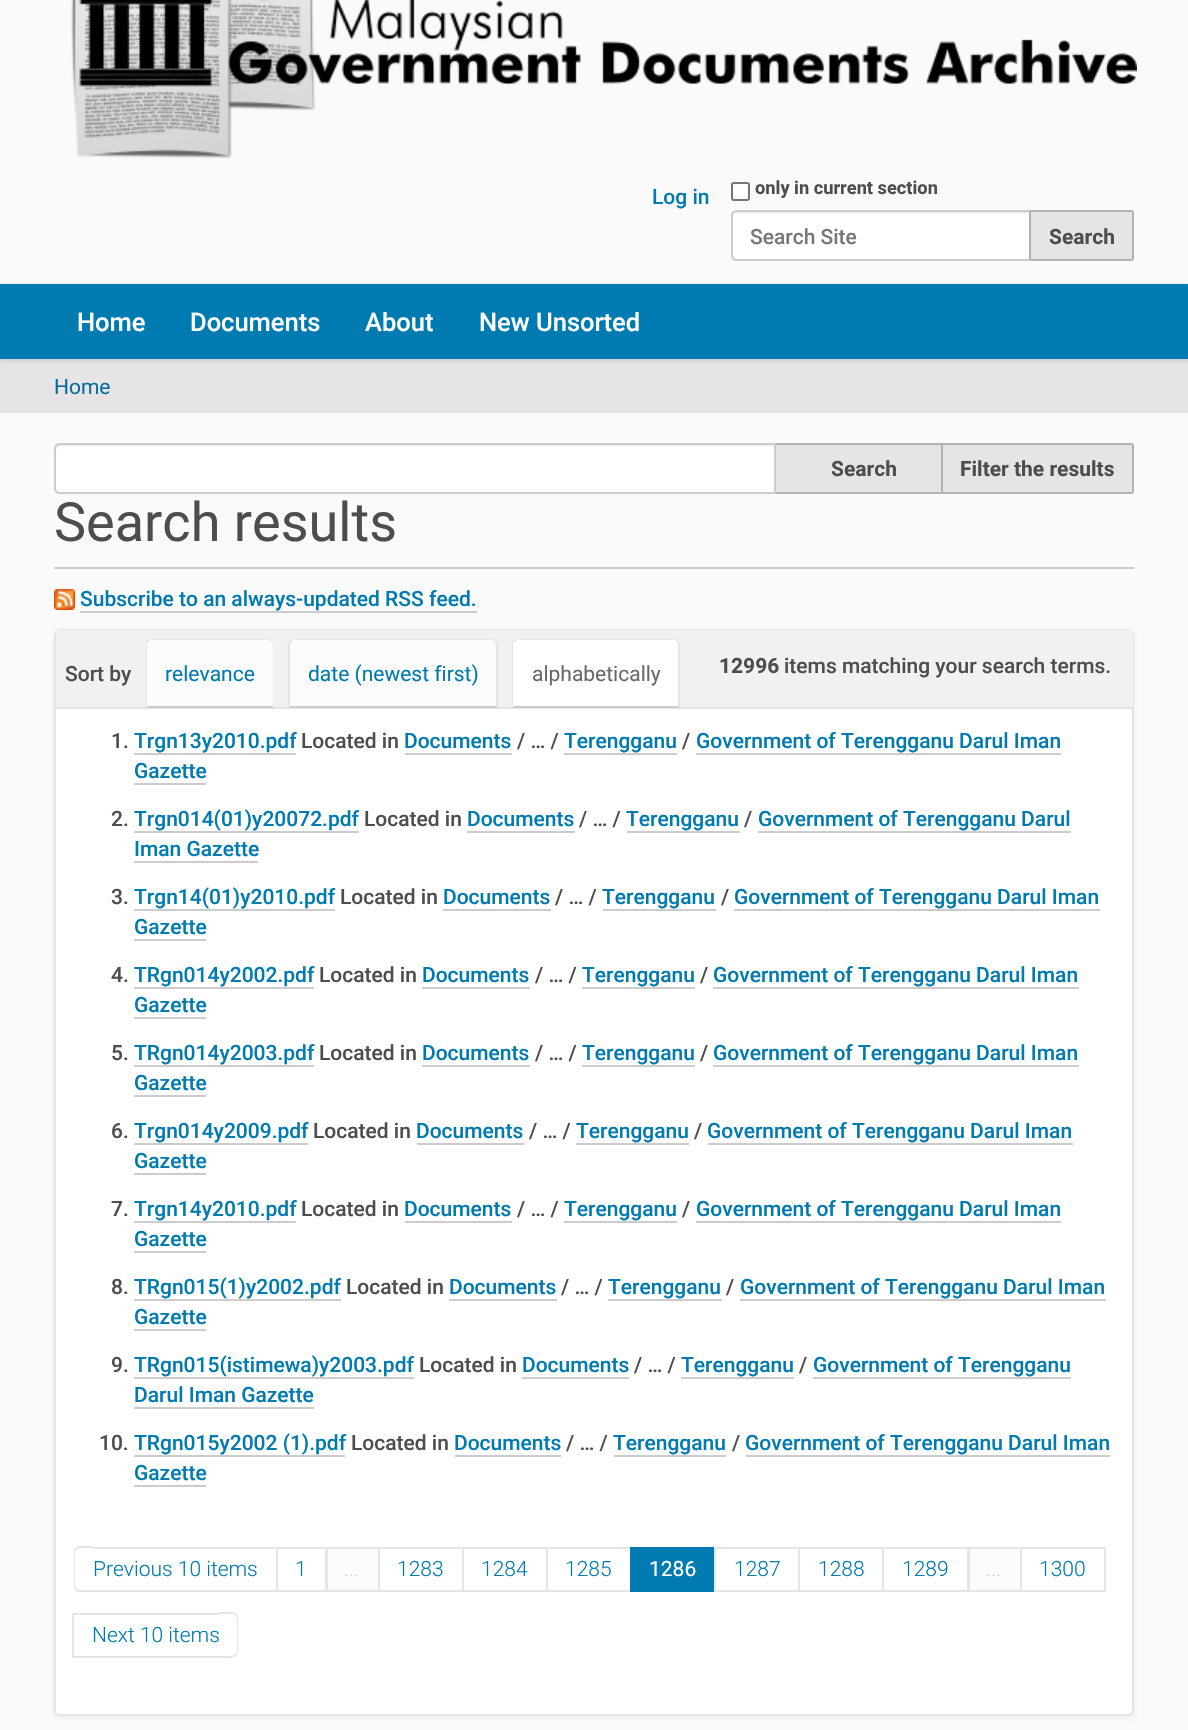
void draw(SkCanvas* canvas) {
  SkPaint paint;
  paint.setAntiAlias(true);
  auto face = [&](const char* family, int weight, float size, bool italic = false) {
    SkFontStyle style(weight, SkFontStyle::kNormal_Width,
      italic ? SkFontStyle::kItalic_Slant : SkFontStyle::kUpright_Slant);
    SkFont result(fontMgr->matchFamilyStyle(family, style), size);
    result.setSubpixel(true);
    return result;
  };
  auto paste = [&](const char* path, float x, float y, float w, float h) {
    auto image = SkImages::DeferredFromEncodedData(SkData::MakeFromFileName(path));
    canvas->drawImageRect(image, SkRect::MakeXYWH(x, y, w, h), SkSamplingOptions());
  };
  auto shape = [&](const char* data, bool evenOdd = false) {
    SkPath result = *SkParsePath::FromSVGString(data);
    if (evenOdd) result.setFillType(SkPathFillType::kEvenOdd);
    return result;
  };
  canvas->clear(0xfffafafa);
  paste("img/1.png", 71, 0, 1066, 159);
  paint.setColor(0xffffffff);
  canvas->drawRoundRect(SkRect::MakeXYWH(732, 183, 17, 17), 2, 2, paint);
  paint.setStroke(true);
  paint.setStrokeWidth(2);
  paint.setColor(0xff767676);
  canvas->drawRoundRect(SkRect::MakeXYWH(732, 183, 17, 17), 2, 2, paint);
  paint.setStroke(false);
  paint.setColor(0xffffffff);
  canvas->drawPath(shape("M737 210H1031V261H737C733.5 261 731 258.5 731 255V216C731 212.5 733.5 210 737 210Z"), paint);
  paint.setColor(0xffececec);
  canvas->drawPath(shape("M736 213H1029V212H737C734 212 732 214 732 217V218C732 215 734 213 736 213Z"), paint);
  paint.setStroke(true);
  paint.setColor(0xffcccccc);
  canvas->drawPath(shape("M737 211H1030V260H737C734 260 732 258 732 255V216C732 213 734 211 737 211Z"), paint);
  paint.setStroke(false);
  paint.setColor(0xffe5e5e5);
  canvas->drawRoundRect(SkRect::MakeXYWH(1030, 211, 103, 49), 2, 2, paint);
  paint.setStroke(true);
  paint.setColor(0xffb2b2b2);
  canvas->drawRoundRect(SkRect::MakeXYWH(1030, 211, 103, 49), 2, 2, paint);
  paint.setStroke(false);
  paint.setColor(0xffe6e4e4);
  canvas->drawRect(SkRect::MakeXYWH(0, 359, 1188, 54), paint);
  paint.setColor(0x2b000000);
  paint.setMaskFilter(SkMaskFilter::MakeBlur(kNormal_SkBlurStyle, 2));
  canvas->drawRect(SkRect::MakeXYWH(0, 285, 1188, 75), paint);
  paint.setMaskFilter(nullptr);
  paint.setColor(0xff007bb1);
  canvas->drawRect(SkRect::MakeXYWH(0, 284, 1188, 75), paint);
  paint.setColor(0xffe5e5e5);
  canvas->drawRect(SkRect::MakeXYWH(776, 445, 166, 47), paint);
  paint.setStroke(true);
  paint.setColor(0xffb2b2b2);
  canvas->drawRect(SkRect::MakeXYWH(775, 444, 178, 49), paint);
  paint.setStroke(false);
  paint.setColor(0xffffffff);
  canvas->drawPath(shape("M60 443H776V494H60C56.5 494 54 491.5 54 488V449C54 445.5 56.5 443 60 443Z"), paint);
  paint.setColor(0xffececec);
  canvas->drawPath(shape("M60 446H774V444H61C58 444 56 447 56 450C56 448 58 446 60 446Z"), paint);
  paint.setStroke(true);
  paint.setColor(0xffcccccc);
  canvas->drawPath(shape("M60 444H775V493H60C57 493 55 491 55 488V449C55 446 57 444 60 444Z"), paint);
  paint.setStroke(false);
  paint.setColor(0xffe5e5e5);
  canvas->drawRoundRect(SkRect::MakeXYWH(942, 444, 191, 49), 2, 2, paint);
  paint.setStroke(true);
  paint.setColor(0xffb2b2b2);
  canvas->drawRoundRect(SkRect::MakeXYWH(942, 444, 191, 49), 2, 2, paint);
  paint.setStroke(false);
  paint.setColor(0xffcccccc);
  canvas->drawRect(SkRect::MakeXYWH(54, 567, 1080, 2), paint);
  paste("img/2.png", 54, 589, 21, 21);
  canvas->drawRect(SkRect::MakeXYWH(80, 611, 397, 2), paint);
  paint.setColor(0x0d000000);
  paint.setMaskFilter(SkMaskFilter::MakeBlur(kNormal_SkBlurStyle, 2));
  canvas->drawRoundRect(SkRect::MakeXYWH(54, 630, 1080, 1088), 6, 6, paint);
  paint.setMaskFilter(nullptr);
  paint.setColor(0xffffffff);
  canvas->drawRoundRect(SkRect::MakeXYWH(55, 630, 1078, 1085), 5, 5, paint);
  paint.setStroke(true);
  paint.setColor(0xffe5e5e5);
  canvas->drawRoundRect(SkRect::MakeXYWH(55, 630, 1078, 1085), 5, 5, paint);
  paint.setStroke(false);
  paint.setColor(0xfff2f1f1);
  canvas->drawRect(SkRect::MakeXYWH(56, 630, 1077, 77), paint);
  paint.setColor(0xffe5e5e5);
  canvas->drawRect(SkRect::MakeXYWH(56, 707, 1077, 2), paint);
  paint.setColor(0xfffcfcfd);
  canvas->drawPath(shape("M152 639H269C272.5 639 275 641.5 275 645V708H146V645C146 641.5 148.5 639 152 639Z"), paint);
  paint.setColor(0xffe5e5e5);
  canvas->drawPath(shape("M152 639C150 639 148 640 147 641L148 642L151 640H269L272 642L273 641C272 640 270 639 268 639Z"), paint);
  canvas->drawPath(shape("M273 641C274 642 274 644 274 645V708L272 706H273V645C273 644 273 643 272 642Z"), paint);
  paint.setColor(0xffcccccc);
  canvas->drawPath(shape("M146 708H274L272 706H148Z"), paint);
  paint.setColor(0xffe5e5e5);
  canvas->drawPath(shape("M147 641C146 642 146 644 146 645V708L148 706H147V645C147 644 147 643 148 642Z"), paint);
  paint.setColor(0xfffcfcfd);
  canvas->drawPath(shape("M294 639H492C495.5 639 498 641.5 498 645V708H288V645C288 641.5 290.5 639 294 639Z"), paint);
  paint.setColor(0xffe5e5e5);
  canvas->drawPath(shape("M294 639C292 639 291 640 290 641L291 642L293 640H492C493 640 494 641 495 642L496 641C495 640 494 639 492 639Z"), paint);
  canvas->drawPath(shape("M498 708V645C498 644 497 642 496 641L495 642L496 645V706Z"), paint);
  paint.setColor(0xffcccccc);
  canvas->drawPath(shape("M498 708L496 706H290L288 708Z"), paint);
  paint.setColor(0xffe5e5e5);
  canvas->drawPath(shape("M288 708L290 706V645L291 642L290 641C289 642 288 644 288 645Z"), paint);
  paint.setColor(0xffffffff);
  canvas->drawPath(shape("M518 639H674C677.5 639 680 641.5 680 645V708H512V645C512 641.5 514.5 639 518 639Z"), paint);
  paint.setColor(0xffe5e5e5);
  canvas->drawPath(shape("M518 639C516 639 514 640 513 641L514 642L517 640H674C675 640 676 641 677 642L678 641C677 640 675 639 674 639Z"), paint);
  canvas->drawPath(shape("M680 643V708L678 706V645C678 644 678 643 677 642L678 641Z"), paint);
  paint.setColor(0xffcccccc);
  canvas->drawPath(shape("M680 708L678 706H514L512 708Z"), paint);
  paint.setColor(0xffe5e5e5);
  canvas->drawPath(shape("M513 641C512 642 512 644 512 645V708L514 706H513V645C513 644 513 643 514 642Z"), paint);
  {
    const struct { float x, y, w, h; SkColor color; } items[] = {
      {134, 753, 162, 2, 0xffcccccc},
      {405, 753, 107, 2, 0xffcccccc},
      {564, 753, 113, 2, 0xffcccccc},
      {696, 753, 365, 2, 0xffcccccc},
      {134, 783, 72, 2, 0xffcccccc},
      {134, 831, 225, 2, 0xffcccccc},
      {467, 831, 108, 2, 0xffcccccc},
      {627, 831, 113, 2, 0xffcccccc},
      {758, 831, 313, 2, 0xffcccccc},
      {134, 861, 124, 2, 0xffcccccc},
      {134, 909, 201, 2, 0xffcccccc},
      {443, 909, 108, 2, 0xffcccccc},
      {603, 909, 113, 2, 0xffcccccc},
      {734, 909, 366, 2, 0xffcccccc},
      {134, 939, 72, 2, 0xffcccccc},
      {134, 987, 180, 2, 0xffcccccc},
      {422, 987, 108, 2, 0xffcccccc},
      {582, 987, 113, 2, 0xffcccccc},
      {713, 987, 366, 2, 0xffcccccc},
      {134, 1017, 72, 2, 0xffcccccc},
      {134, 1065, 180, 2, 0xffcccccc},
      {422, 1065, 108, 2, 0xffcccccc},
      {582, 1065, 113, 2, 0xffcccccc},
      {713, 1065, 366, 2, 0xffcccccc},
      {134, 1095, 72, 2, 0xffcccccc},
      {134, 1143, 174, 2, 0xffcccccc},
      {417, 1143, 107, 2, 0xffcccccc},
      {576, 1143, 113, 2, 0xffcccccc},
      {708, 1143, 365, 2, 0xffcccccc},
      {134, 1173, 72, 2, 0xffcccccc},
      {134, 1221, 162, 2, 0xffcccccc},
      {405, 1221, 107, 2, 0xffcccccc},
      {564, 1221, 113, 2, 0xffcccccc},
      {696, 1221, 365, 2, 0xffcccccc},
      {134, 1251, 72, 2, 0xffcccccc},
      {134, 1299, 207, 2, 0xffcccccc},
      {449, 1299, 108, 2, 0xffcccccc},
      {608, 1299, 114, 2, 0xffcccccc},
      {740, 1299, 366, 2, 0xffcccccc},
      {134, 1329, 72, 2, 0xffcccccc},
      {134, 1377, 280, 2, 0xffcccccc},
      {522, 1377, 107, 2, 0xffcccccc},
      {681, 1377, 113, 2, 0xffcccccc},
      {813, 1377, 258, 2, 0xffcccccc},
      {134, 1407, 180, 2, 0xffcccccc},
      {134, 1455, 211, 2, 0xffcccccc},
      {455, 1455, 106, 2, 0xffcccccc},
      {614, 1455, 112, 2, 0xffcccccc},
      {746, 1455, 364, 2, 0xffcccccc},
      {134, 1485, 72, 2, 0xffcccccc},
    };
    for (auto [x, y, w, h, color] : items) {
      paint.setColor(color);
      canvas->drawRect(SkRect::MakeXYWH(x, y, w, h), paint);
    }
  }
  paint.setColor(0xffe5e5e5);
  canvas->drawPath(shape("M80 1546H93V1592H80C76 1592 74 1589 74 1586V1552C74 1549 76 1546 80 1546ZM80 1548H93V1590H80C77 1590 75 1588 75 1586V1552C75 1550 77 1548 80 1548Z", true), paint);
  canvas->drawRect(SkRect::MakeXYWH(93, 1547, 185, 2), paint);
  canvas->drawRect(SkRect::MakeXYWH(93, 1590, 185, 2), paint);
  paint.setStroke(true);
  canvas->drawRect(SkRect::MakeXYWH(277, 1548, 49, 43), paint);
  paint.setStroke(false);
  paint.setColor(0xfffcfcfd);
  canvas->drawRect(SkRect::MakeXYWH(327, 1548, 52, 43), paint);
  paint.setStroke(true);
  paint.setColor(0xffe5e5e5);
  canvas->drawRect(SkRect::MakeXYWH(327, 1548, 52, 43), paint);
  canvas->drawRect(SkRect::MakeXYWH(379, 1548, 84, 43), paint);
  canvas->drawRect(SkRect::MakeXYWH(463, 1548, 84, 43), paint);
  canvas->drawRect(SkRect::MakeXYWH(547, 1548, 84, 43), paint);
  paint.setStroke(false);
  paint.setColor(0xff007bb1);
  canvas->drawRect(SkRect::MakeXYWH(630, 1547, 84, 45), paint);
  paint.setStroke(true);
  paint.setColor(0xffe5e5e5);
  canvas->drawRect(SkRect::MakeXYWH(715, 1548, 84, 43), paint);
  canvas->drawRect(SkRect::MakeXYWH(799, 1548, 84, 43), paint);
  canvas->drawRect(SkRect::MakeXYWH(883, 1548, 85, 43), paint);
  paint.setStroke(false);
  paint.setColor(0xfffcfcfd);
  canvas->drawRect(SkRect::MakeXYWH(969, 1548, 52, 43), paint);
  paint.setStroke(true);
  paint.setColor(0xffe5e5e5);
  canvas->drawRect(SkRect::MakeXYWH(969, 1548, 52, 43), paint);
  canvas->drawRect(SkRect::MakeXYWH(1021, 1548, 84, 43), paint);
  paint.setStroke(false);
  {
    const struct { float x, y, w, h; SkColor color; } items[] = {
      {72, 1613, 147, 2, 0xffe5e5e5},
      {72, 1656, 147, 2, 0xffe5e5e5},
      {72, 1613, 2, 45, 0xffe5e5e5},
    };
    for (auto [x, y, w, h, color] : items) {
      paint.setColor(color);
      canvas->drawRect(SkRect::MakeXYWH(x, y, w, h), paint);
    }
  }
  canvas->drawPath(shape("M219 1612C241 1612 238 1611 238 1635C238 1659 241 1658 219 1658ZM219 1614C240 1614 237 1612 237 1635C237 1658 240 1656 219 1656Z", true), paint);
  auto f0 = face("Roboto", 500, 21);
  paint.setColor(0xff007bb1);
  canvas->drawString("Log in", 652, 204, f0, paint);
  auto f1 = face("Roboto", 700, 18.25f);
  paint.setColor(0xff4d4d4d);
  canvas->drawString("only in current section", 755, 194, f1, paint);
  paint.setColor(0xff777777);
  canvas->drawString("Search Site", 750, 244, f0, paint);
  auto f2 = face("Roboto", 700, 21);
  paint.setColor(0xff4d4d4d);
  canvas->drawString("Search", 1049, 244, f2, paint);
  auto f3 = face("Roboto", 500, 25.5f);
  paint.setColor(0xffffffff);
  {
    const struct { const char* s; float x, y; } items[] = {
      {"Home", 77, 331},
      {"Documents", 190, 331},
      {"About", 365, 331},
      {"New Unsorted", 479, 331},
    };
    for (auto [s, x, y] : items) {
      canvas->drawString(s, x, y, f3, paint);
    }
  }
  auto f4 = face("Roboto", 400, 21);
  paint.setColor(0xff086ca3);
  canvas->drawString("Home", 54, 394, f4, paint);
  paint.setColor(0xff4d4d4d);
  canvas->drawString("Search", 831, 476, f2, paint);
  canvas->drawString("Filter the results", 960, 476, f2, paint);
  auto f5 = face("Roboto", 400, 54);
  canvas->drawString("Search results", 54, 541, f5, paint);
  paint.setColor(0xff007bb1);
  canvas->drawString("Subscribe to an always-updated RSS feed.", 80, 606, f0, paint);
  paint.setColor(0xff4d4d4d);
  canvas->drawString("12996", 719, 673, f2, paint);
  canvas->drawString("items matching your search terms.", 784, 673, f0, paint);
  canvas->drawString("Sort by", 65, 681, f0, paint);
  paint.setColor(0xff007bb1);
  canvas->drawString("relevance", 165, 681, f4, paint);
  canvas->drawString("date (newest first)", 308, 681, f4, paint);
  paint.setColor(0xff696969);
  canvas->drawString("alphabetically", 532, 681, f4, paint);
  paint.setColor(0xff4d4d4d);
  canvas->drawString("1.", 111, 748, f0, paint);
  paint.setColor(0xff007bb1);
  canvas->drawString("Trgn13y2010.pdf", 134, 748, f0, paint);
  paint.setColor(0xff4d4d4d);
  canvas->drawString("Located in", 301, 748, f0, paint);
  paint.setColor(0xff007bb1);
  canvas->drawString("Documents", 404, 748, f0, paint);
  paint.setColor(0xff4d4d4d);
  canvas->drawString("/ … /", 517, 748, f0, paint);
  paint.setColor(0xff007bb1);
  canvas->drawString("Terengganu", 564, 748, f0, paint);
  paint.setColor(0xff4d4d4d);
  canvas->drawString("/", 682, 748, f0, paint);
  paint.setColor(0xff007bb1);
  canvas->drawString("Government of Terengganu Darul Iman", 696, 748, f0, paint);
  canvas->drawString("Gazette", 134, 778, f0, paint);
  paint.setColor(0xff4d4d4d);
  canvas->drawString("2.", 111, 826, f0, paint);
  paint.setColor(0xff007bb1);
  canvas->drawString("Trgn014(01)y20072.pdf", 134, 826, f0, paint);
  paint.setColor(0xff4d4d4d);
  canvas->drawString("Located in", 364, 826, f0, paint);
  paint.setColor(0xff007bb1);
  canvas->drawString("Documents", 467, 826, f0, paint);
  paint.setColor(0xff4d4d4d);
  canvas->drawString("/ … /", 579, 826, f0, paint);
  paint.setColor(0xff007bb1);
  canvas->drawString("Terengganu", 626, 826, f0, paint);
  paint.setColor(0xff4d4d4d);
  canvas->drawString("/", 744, 826, f0, paint);
  paint.setColor(0xff007bb1);
  canvas->drawString("Government of Terengganu Darul", 758, 826, f0, paint);
  canvas->drawString("Iman Gazette", 134, 856, f0, paint);
  paint.setColor(0xff4d4d4d);
  canvas->drawString("3.", 111, 904, f0, paint);
  paint.setColor(0xff007bb1);
  canvas->drawString("Trgn14(01)y2010.pdf", 134, 904, f0, paint);
  paint.setColor(0xff4d4d4d);
  canvas->drawString("Located in", 340, 904, f0, paint);
  paint.setColor(0xff007bb1);
  canvas->drawString("Documents", 443, 904, f0, paint);
  paint.setColor(0xff4d4d4d);
  canvas->drawString("/ … /", 555, 904, f0, paint);
  paint.setColor(0xff007bb1);
  canvas->drawString("Terengganu", 602, 904, f0, paint);
  paint.setColor(0xff4d4d4d);
  canvas->drawString("/", 721, 904, f0, paint);
  paint.setColor(0xff007bb1);
  canvas->drawString("Government of Terengganu Darul Iman", 734, 904, f0, paint);
  canvas->drawString("Gazette", 134, 934, f0, paint);
  paint.setColor(0xff4d4d4d);
  canvas->drawString("4.", 111, 982, f0, paint);
  paint.setColor(0xff007bb1);
  canvas->drawString("TRgn014y2002.pdf", 134, 982, f0, paint);
  paint.setColor(0xff4d4d4d);
  canvas->drawString("Located in", 319, 982, f0, paint);
  paint.setColor(0xff007bb1);
  canvas->drawString("Documents", 422, 982, f0, paint);
  paint.setColor(0xff4d4d4d);
  canvas->drawString("/ … /", 535, 982, f0, paint);
  paint.setColor(0xff007bb1);
  canvas->drawString("Terengganu", 582, 982, f0, paint);
  paint.setColor(0xff4d4d4d);
  canvas->drawString("/", 700, 982, f0, paint);
  paint.setColor(0xff007bb1);
  canvas->drawString("Government of Terengganu Darul Iman", 713, 982, f0, paint);
  canvas->drawString("Gazette", 134, 1012, f0, paint);
  paint.setColor(0xff4d4d4d);
  canvas->drawString("5.", 111, 1060, f0, paint);
  paint.setColor(0xff007bb1);
  canvas->drawString("TRgn014y2003.pdf", 134, 1060, f0, paint);
  paint.setColor(0xff4d4d4d);
  canvas->drawString("Located in", 319, 1060, f0, paint);
  paint.setColor(0xff007bb1);
  canvas->drawString("Documents", 422, 1060, f0, paint);
  paint.setColor(0xff4d4d4d);
  canvas->drawString("/ … /", 535, 1060, f0, paint);
  paint.setColor(0xff007bb1);
  canvas->drawString("Terengganu", 582, 1060, f0, paint);
  paint.setColor(0xff4d4d4d);
  canvas->drawString("/", 700, 1060, f0, paint);
  paint.setColor(0xff007bb1);
  canvas->drawString("Government of Terengganu Darul Iman", 713, 1060, f0, paint);
  canvas->drawString("Gazette", 134, 1090, f0, paint);
  paint.setColor(0xff4d4d4d);
  canvas->drawString("6.", 111, 1138, f0, paint);
  paint.setColor(0xff007bb1);
  canvas->drawString("Trgn014y2009.pdf", 134, 1138, f0, paint);
  paint.setColor(0xff4d4d4d);
  canvas->drawString("Located in", 313, 1138, f0, paint);
  paint.setColor(0xff007bb1);
  canvas->drawString("Documents", 416, 1138, f0, paint);
  paint.setColor(0xff4d4d4d);
  canvas->drawString("/ … /", 529, 1138, f0, paint);
  paint.setColor(0xff007bb1);
  canvas->drawString("Terengganu", 576, 1138, f0, paint);
  paint.setColor(0xff4d4d4d);
  canvas->drawString("/", 694, 1138, f0, paint);
  paint.setColor(0xff007bb1);
  canvas->drawString("Government of Terengganu Darul Iman", 707, 1138, f0, paint);
  canvas->drawString("Gazette", 134, 1168, f0, paint);
  paint.setColor(0xff4d4d4d);
  canvas->drawString("7.", 111, 1216, f0, paint);
  paint.setColor(0xff007bb1);
  canvas->drawString("Trgn14y2010.pdf", 134, 1216, f0, paint);
  paint.setColor(0xff4d4d4d);
  canvas->drawString("Located in", 301, 1216, f0, paint);
  paint.setColor(0xff007bb1);
  canvas->drawString("Documents", 404, 1216, f0, paint);
  paint.setColor(0xff4d4d4d);
  canvas->drawString("/ … /", 517, 1216, f0, paint);
  paint.setColor(0xff007bb1);
  canvas->drawString("Terengganu", 564, 1216, f0, paint);
  paint.setColor(0xff4d4d4d);
  canvas->drawString("/", 682, 1216, f0, paint);
  paint.setColor(0xff007bb1);
  canvas->drawString("Government of Terengganu Darul Iman", 696, 1216, f0, paint);
  canvas->drawString("Gazette", 134, 1246, f0, paint);
  paint.setColor(0xff4d4d4d);
  canvas->drawString("8.", 111, 1294, f0, paint);
  paint.setColor(0xff007bb1);
  canvas->drawString("TRgn015(1)y2002.pdf", 134, 1294, f0, paint);
  paint.setColor(0xff4d4d4d);
  canvas->drawString("Located in", 346, 1294, f0, paint);
  paint.setColor(0xff007bb1);
  canvas->drawString("Documents", 449, 1294, f0, paint);
  paint.setColor(0xff4d4d4d);
  canvas->drawString("/ … /", 561, 1294, f0, paint);
  paint.setColor(0xff007bb1);
  canvas->drawString("Terengganu", 608, 1294, f0, paint);
  paint.setColor(0xff4d4d4d);
  canvas->drawString("/", 726, 1294, f0, paint);
  paint.setColor(0xff007bb1);
  canvas->drawString("Government of Terengganu Darul Iman", 740, 1294, f0, paint);
  canvas->drawString("Gazette", 134, 1324, f0, paint);
  paint.setColor(0xff4d4d4d);
  canvas->drawString("9.", 111, 1372, f0, paint);
  paint.setColor(0xff007bb1);
  canvas->drawString("TRgn015(istimewa)y2003.pdf", 134, 1372, f0, paint);
  paint.setColor(0xff4d4d4d);
  canvas->drawString("Located in", 419, 1372, f0, paint);
  paint.setColor(0xff007bb1);
  canvas->drawString("Documents", 522, 1372, f0, paint);
  paint.setColor(0xff4d4d4d);
  canvas->drawString("/ … /", 634, 1372, f0, paint);
  paint.setColor(0xff007bb1);
  canvas->drawString("Terengganu", 681, 1372, f0, paint);
  paint.setColor(0xff4d4d4d);
  canvas->drawString("/", 799, 1372, f0, paint);
  paint.setColor(0xff007bb1);
  canvas->drawString("Government of Terengganu", 813, 1372, f0, paint);
  canvas->drawString("Darul Iman Gazette", 134, 1402, f0, paint);
  paint.setColor(0xff4d4d4d);
  canvas->drawString("10.", 99, 1450, f0, paint);
  paint.setColor(0xff007bb1);
  canvas->drawString("TRgn015y2002 (1).pdf", 134, 1450, f0, paint);
  paint.setColor(0xff4d4d4d);
  canvas->drawString("Located in", 351, 1450, f0, paint);
  paint.setColor(0xff007bb1);
  canvas->drawString("Documents", 454, 1450, f0, paint);
  paint.setColor(0xff4d4d4d);
  canvas->drawString("/ … /", 566, 1450, f0, paint);
  paint.setColor(0xff007bb1);
  canvas->drawString("Terengganu", 613, 1450, f0, paint);
  paint.setColor(0xff4d4d4d);
  canvas->drawString("/", 732, 1450, f0, paint);
  paint.setColor(0xff007bb1);
  canvas->drawString("Government of Terengganu Darul Iman", 745, 1450, f0, paint);
  canvas->drawString("Gazette", 134, 1480, f0, paint);
  auto f6 = face("Roboto", 300, 21);
  canvas->drawString("Previous 10 items", 93, 1576, f6, paint);
  canvas->drawString("1", 295, 1576, f6, paint);
  paint.setColor(0xffcccccc);
  canvas->drawString("...", 344, 1576, f6, paint);
  paint.setColor(0xff007bb1);
  {
    const struct { const char* s; float x, y; } items[] = {
      {"1283", 397, 1576},
      {"1284", 481, 1576},
      {"1285", 565, 1576},
    };
    for (auto [s, x, y] : items) {
      canvas->drawString(s, x, y, f6, paint);
    }
  }
  paint.setColor(0xffffffff);
  canvas->drawString("1286", 649, 1576, f4, paint);
  paint.setColor(0xff007bb1);
  {
    const struct { const char* s; float x, y; } items[] = {
      {"1287", 734, 1576},
      {"1288", 818, 1576},
      {"1289", 902, 1576},
    };
    for (auto [s, x, y] : items) {
      canvas->drawString(s, x, y, f6, paint);
    }
  }
  paint.setColor(0xffcccccc);
  canvas->drawString("...", 986, 1576, f6, paint);
  paint.setColor(0xff007bb1);
  canvas->drawString("1300", 1039, 1576, f6, paint);
  canvas->drawString("Next 10 items", 92, 1642, f6, paint);
}
